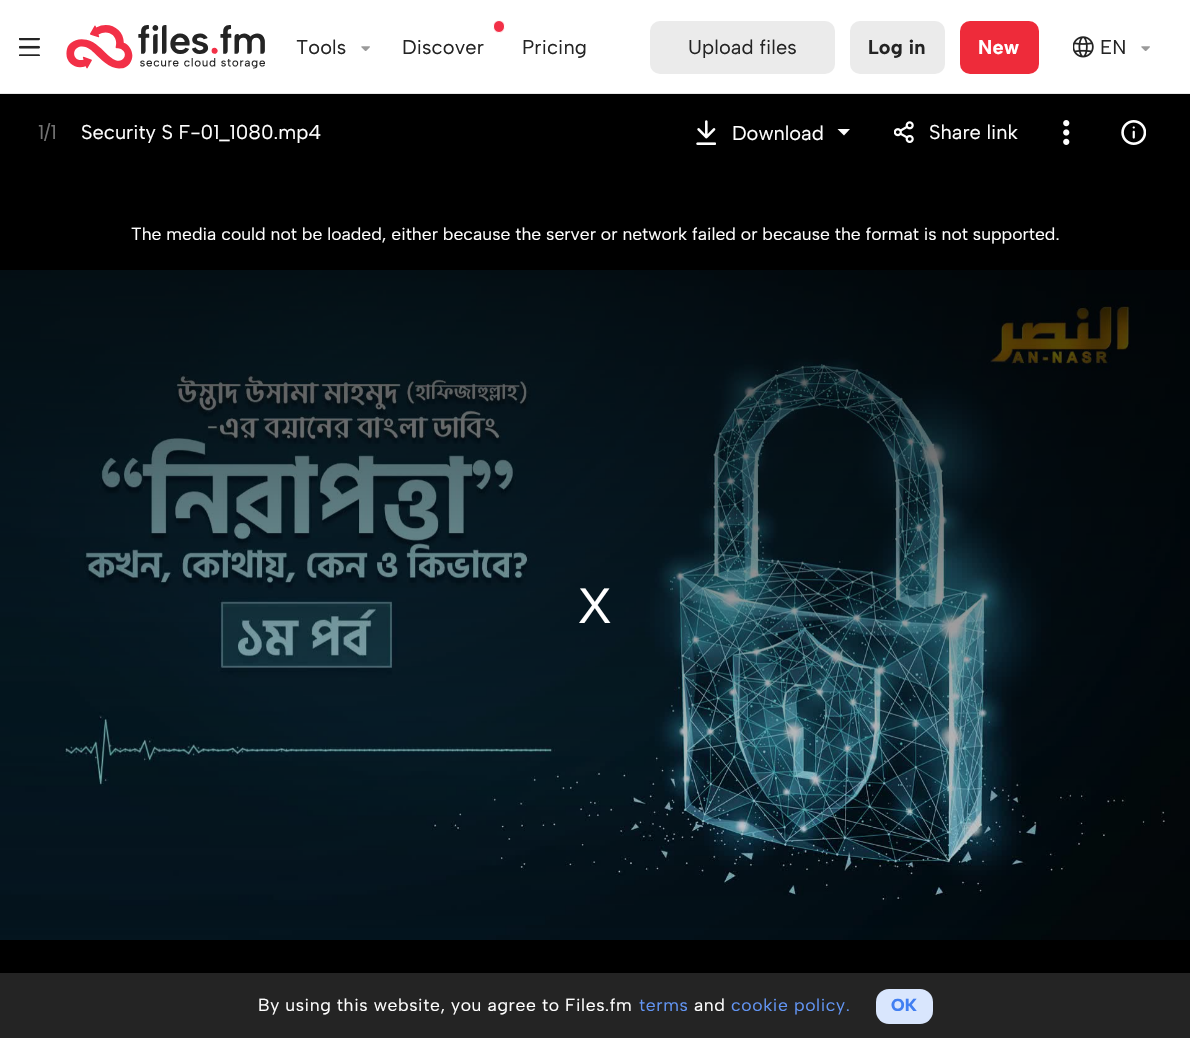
void draw(SkCanvas* canvas) {
  SkPaint paint;
  paint.setAntiAlias(true);
  auto face = [&](const char* family, int weight, float size, bool italic = false) {
    SkFontStyle style(weight, SkFontStyle::kNormal_Width,
      italic ? SkFontStyle::kItalic_Slant : SkFontStyle::kUpright_Slant);
    SkFont result(fontMgr->matchFamilyStyle(family, style), size);
    result.setSubpixel(true);
    return result;
  };
  auto writeSpaced = [&](const char* s, float x, float y, const SkFont& font, const SkPaint& ink, float letter, float word) {
    std::vector<SkGlyphID> glyphs(font.countText(s, strlen(s), SkTextEncoding::kUTF8));
    std::vector<float> xs(glyphs.size());
    font.textToGlyphs(s, strlen(s), SkTextEncoding::kUTF8, glyphs);
    font.getXPos(glyphs, xs, x);
    float extra = 0;
    for (size_t i = 0; i < glyphs.size(); i++) {
      xs[i] += extra;
      extra += letter + word * (glyphs[i] == font.unicharToGlyph(' '));
    }
    canvas->drawTextBlob(SkTextBlob::MakeFromPosHGlyphs(glyphs, xs, y, font), 0, 0, ink);
  };
  auto paste = [&](const char* path, float x, float y, float w, float h) {
    auto image = SkImages::DeferredFromEncodedData(SkData::MakeFromFileName(path));
    canvas->drawImageRect(image, SkRect::MakeXYWH(x, y, w, h), SkSamplingOptions());
  };
  auto shape = [&](const char* data, bool evenOdd = false) {
    SkPath result = *SkParsePath::FromSVGString(data);
    if (evenOdd) result.setFillType(SkPathFillType::kEvenOdd);
    return result;
  };
  canvas->clear(0xffffffff);
  paint.setColor(0xffe8e8e8);
  canvas->drawRect(SkRect::MakeXYWH(0, 93, 1190, 1), paint);
  paste("img/1.png", 19, 38, 21, 18);
  paste("img/2.png", 66, 25, 199, 44);
  paste("img/3.png", 361, 46, 9, 5);
  paint.setColor(0xfff23047);
  canvas->drawRoundRect(SkRect::MakeXYWH(493.5f, 20.5f, 11, 12), 5.5f, 5.5f, paint);
  paint.setStroke(true);
  paint.setStrokeWidth(1);
  paint.setColor(0xffffffff);
  canvas->drawRoundRect(SkRect::MakeXYWH(493.5f, 20.5f, 11, 12), 5.5f, 5.5f, paint);
  paint.setStroke(false);
  paint.setColor(0xffebebeb);
  canvas->drawRoundRect(SkRect::MakeXYWH(650, 21, 185, 53), 10, 10, paint);
  canvas->drawRoundRect(SkRect::MakeXYWH(850, 21, 95, 53), 10, 10, paint);
  paint.setColor(0xffee2b3a);
  canvas->drawRoundRect(SkRect::MakeXYWH(960, 21, 79, 53), 10, 10, paint);
  paste("img/3.png", 1141, 46, 9, 5);
  paste("img/4.png", 1073, 36, 21, 22);
  paint.setColor(0xff000000);
  canvas->drawRect(SkRect::MakeXYWH(0, 94, 1190, 879), paint);
  paste("img/5.png", 696, 120, 20, 25);
  paint.setColor(0xffffffff);
  canvas->drawPath(shape("M837.5 129L844 135.5L850 129Z"), paint);
  paste("img/6.png", 894, 121, 20, 22);
  paste("img/7.png", 1063, 120, 7, 25);
  paste("img/8.png", 1121, 120, 25, 25);
  paste("img/9.png", 0, 270, 1190, 670);
  {
    const SkColor colors[] = {0xcc000000, 0x00000000};
    const float stops[] = {0, 1};
    const SkPoint ends[] = {{595, 196}, {595, 1014}};
    paint.setShader(SkGradientShader::MakeLinear(ends, colors, stops, 2, SkTileMode::kClamp));
    paint.setAlpha(255);
  }
  canvas->drawRect(SkRect::MakeXYWH(0, 270, 1190, 658), paint);
  paint.setShader(nullptr);
  paint.setColor(0xff242424);
  canvas->drawRect(SkRect::MakeXYWH(0, 973, 1190, 65), paint);
  paint.setColor(0xffd9e6fd);
  canvas->drawRoundRect(SkRect::MakeXYWH(876, 989, 57, 35), 13, 13, paint);
  auto f0 = face("Albert Sans", 400, 20);
  paint.setColor(0xff242424);
  {
    const struct { const char* s; float x, y; } items[] = {
      {"Tools", 296, 54},
      {"Discover", 402, 54},
      {"Pricing", 522, 54},
      {"Upload files", 688, 54},
    };
    for (auto [s, x, y] : items) {
      writeSpaced(s, x, y, f0, paint, 0.1f, 0);
    }
  }
  auto f1 = face("Albert Sans", 700, 20);
  writeSpaced("Log in", 868, 54, f1, paint, 0.1f, 0);
  paint.setColor(0xffffffff);
  writeSpaced("New", 978, 54, f1, paint, 0.1f, 0);
  paint.setColor(0xff242424);
  writeSpaced("EN", 1100, 54, f0, paint, 0.1f, 0);
  paint.setColor(0xff737373);
  canvas->drawString("1/1", 38, 139, f0, paint);
  paint.setColor(0xffffffff);
  {
    const struct { const char* s; float x, y; } items[] = {
      {"Security S F-01_1080.mp4", 81, 139},
      {"Download", 732, 140},
      {"Share link", 929, 139},
    };
    for (auto [s, x, y] : items) {
      canvas->drawString(s, x, y, f0, paint);
    }
  }
  auto f2 = face("Albert Sans", 400, 17.5f);
  canvas->drawString("The media could not be loaded, either because the server or network failed or because the format is not supported.", 131, 240, f2, paint);
  auto f3 = face("Liberation Sans", 400, 50);
  canvas->drawString("X", 578, 623, f3, paint);
  writeSpaced("By using this website, you agree to Files.fm", 258, 1011, f2, paint, 0.6f, 0);
  paint.setColor(0xff6295f4);
  writeSpaced("terms", 639, 1011, f2, paint, 0.6f, 0);
  paint.setColor(0xffffffff);
  writeSpaced("and", 694, 1011, f2, paint, 0.6f, 0);
  paint.setColor(0xff6295f4);
  writeSpaced("cookie policy.", 731, 1011, f2, paint, 0.6f, 0);
  auto f4 = face("Albert Sans", 800, 17.5f);
  paint.setColor(0xff417ff2);
  writeSpaced("OK", 891, 1011, f4, paint, 0.1f, 0);
}
